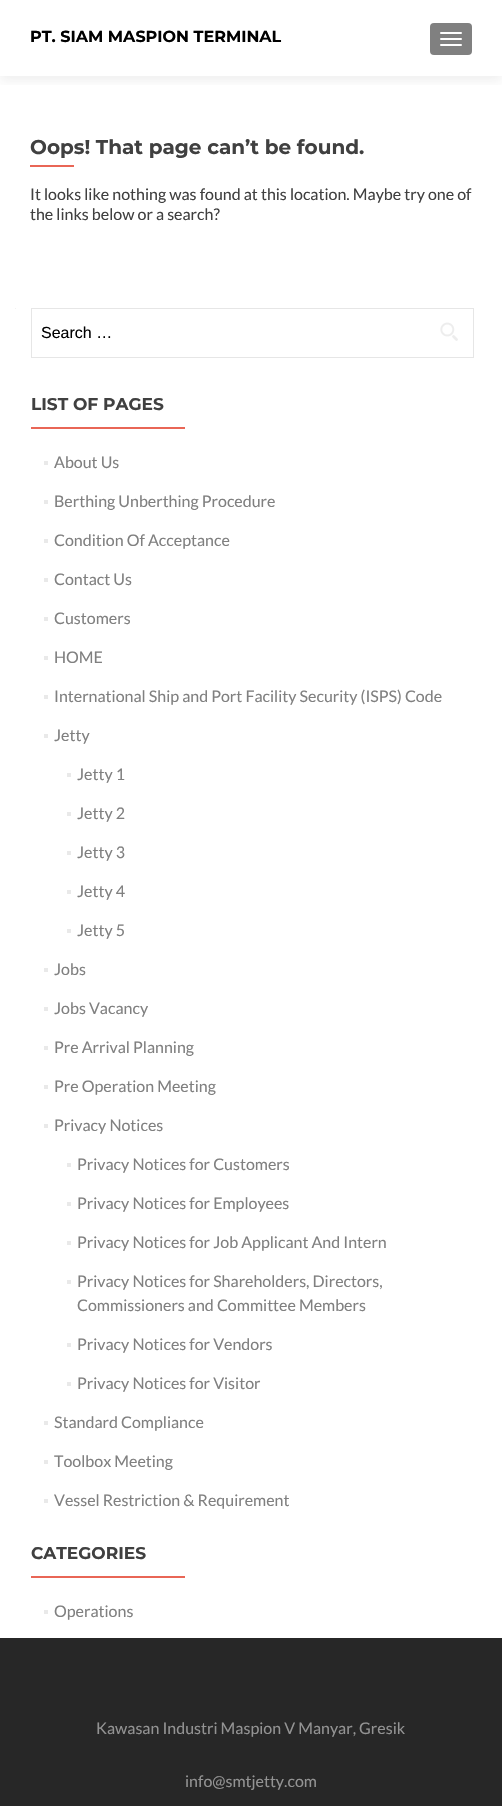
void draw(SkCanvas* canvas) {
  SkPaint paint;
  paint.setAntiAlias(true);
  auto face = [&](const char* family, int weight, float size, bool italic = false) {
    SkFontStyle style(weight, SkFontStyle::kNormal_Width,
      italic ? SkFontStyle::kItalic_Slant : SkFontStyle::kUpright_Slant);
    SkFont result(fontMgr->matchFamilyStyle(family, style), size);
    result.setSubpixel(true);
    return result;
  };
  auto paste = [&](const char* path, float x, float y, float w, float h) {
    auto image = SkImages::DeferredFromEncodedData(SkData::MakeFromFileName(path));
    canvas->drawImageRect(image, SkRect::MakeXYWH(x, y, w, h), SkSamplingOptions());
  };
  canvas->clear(0xffffffff);
  canvas->save();
  canvas->clipRect(SkRect::MakeXYWH(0, 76, 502, 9));
  paint.setColor(0x14323232);
  paint.setMaskFilter(SkMaskFilter::MakeBlur(kNormal_SkBlurStyle, 5.5f));
  canvas->drawRect(SkRect::MakeXYWH(0, 5, 502, 76), paint);
  paint.setMaskFilter(nullptr);
  canvas->restore();
  paint.setColor(0xff808080);
  canvas->drawRoundRect(SkRect::MakeXYWH(430, 23, 42, 32), 4, 4, paint);
  paint.setColor(0xffffffff);
  canvas->drawRoundRect(SkRect::MakeXYWH(440, 32, 22, 2), 1, 1, paint);
  canvas->drawRoundRect(SkRect::MakeXYWH(440, 38, 22, 2), 1, 1, paint);
  canvas->drawRoundRect(SkRect::MakeXYWH(440, 44, 22, 2), 1, 1, paint);
  paint.setColor(0xffe96656);
  canvas->drawRect(SkRect::MakeXYWH(30, 165, 44, 2), paint);
  paint.setColor(0xfff2f2f2);
  canvas->drawRect(SkRect::MakeXYWH(15, 308, 1, 1), paint);
  paint.setStroke(true);
  paint.setStrokeWidth(1);
  paint.setColor(0xffe6e6e6);
  canvas->drawRect(SkRect::MakeXYWH(31.5f, 308.5f, 442, 49), paint);
  paste("img/1.png", 440, 322, 18, 19);
  paint.setStroke(false);
  {
    const struct { float x, y, w, h; SkColor color; } items[] = {
      {31, 427, 154, 2, 0xffe96656},
      {44, 461, 4, 4, 0xffe9e9e9},
      {44, 500, 4, 4, 0xffe9e9e9},
      {44, 539, 4, 4, 0xffe9e9e9},
      {44, 578, 4, 4, 0xffe9e9e9},
      {44, 617, 4, 4, 0xffe9e9e9},
      {44, 656, 4, 4, 0xffe9e9e9},
      {44, 695, 4, 4, 0xffe9e9e9},
      {44, 734, 4, 4, 0xffe9e9e9},
      {67, 773, 4, 4, 0xffe9e9e9},
      {67, 812, 4, 4, 0xffe9e9e9},
      {67, 851, 4, 4, 0xffe9e9e9},
      {67, 890, 4, 4, 0xffe9e9e9},
      {67, 929, 4, 4, 0xffe9e9e9},
      {44, 968, 4, 4, 0xffe9e9e9},
      {44, 1007, 4, 4, 0xffe9e9e9},
      {44, 1046, 4, 4, 0xffe9e9e9},
      {44, 1085, 4, 4, 0xffe9e9e9},
      {44, 1124, 4, 4, 0xffe9e9e9},
      {67, 1163, 4, 4, 0xffe9e9e9},
      {67, 1202, 4, 4, 0xffe9e9e9},
      {67, 1241, 4, 4, 0xffe9e9e9},
      {67, 1280, 4, 4, 0xffe9e9e9},
      {67, 1343, 4, 4, 0xffe9e9e9},
      {67, 1382, 4, 4, 0xffe9e9e9},
      {44, 1421, 4, 4, 0xffe9e9e9},
      {44, 1460, 4, 4, 0xffe9e9e9},
      {44, 1499, 4, 4, 0xffe9e9e9},
      {31, 1576, 154, 2, 0xffe96656},
      {44, 1610, 4, 4, 0xffe9e9e9},
      {0, 1638, 502, 168, 0xff272727},
    };
    for (auto [x, y, w, h, color] : items) {
      paint.setColor(color);
      canvas->drawRect(SkRect::MakeXYWH(x, y, w, h), paint);
    }
  }
  auto f0 = face("Montserrat", 700, 16);
  paint.setColor(0xff000000);
  canvas->drawString("PT. SIAM MASPION TERMINAL", 30, 42, f0, paint);
  auto f1 = face("Montserrat", 700, 20);
  paint.setColor(0xff404040);
  canvas->drawString("Oops! That page can’t be found.", 30, 154, f1, paint);
  auto f2 = face("Lato", 400, 16);
  canvas->drawString("It looks like nothing was found at this location. Maybe try one of", 30, 200, f2, paint);
  canvas->drawString("the links below or a search?", 30, 220, f2, paint);
  auto f3 = face("Liberation Sans", 400, 16);
  paint.setColor(0xff000000);
  canvas->drawString("Search …", 41, 338, f3, paint);
  auto f4 = face("Montserrat", 700, 17);
  paint.setColor(0xff404040);
  canvas->drawString("LIST OF PAGES", 31, 410, f4, paint);
  paint.setColor(0xff808080);
  {
    const struct { const char* s; float x, y; } items[] = {
      {"About Us", 54, 468},
      {"Berthing Unberthing Procedure", 54, 507},
      {"Condition Of Acceptance", 54, 546},
      {"Contact Us", 54, 585},
      {"Customers", 54, 624},
      {"HOME", 54, 663},
      {"International Ship and Port Facility Security (ISPS) Code", 54, 702},
      {"Jetty", 54, 741},
      {"Jetty 1", 77, 780},
      {"Jetty 2", 77, 819},
      {"Jetty 3", 77, 858},
      {"Jetty 4", 77, 897},
      {"Jetty 5", 77, 936},
      {"Jobs", 54, 975},
      {"Jobs Vacancy", 54, 1014},
      {"Pre Arrival Planning", 54, 1053},
      {"Pre Operation Meeting", 54, 1092},
      {"Privacy Notices", 54, 1131},
      {"Privacy Notices for Customers", 77, 1170},
      {"Privacy Notices for Employees", 77, 1209},
      {"Privacy Notices for Job Applicant And Intern", 77, 1248},
      {"Privacy Notices for Shareholders, Directors,", 77, 1287},
      {"Commissioners and Committee Members", 77, 1311},
      {"Privacy Notices for Vendors", 77, 1350},
      {"Privacy Notices for Visitor", 77, 1389},
      {"Standard Compliance", 54, 1428},
      {"Toolbox Meeting", 54, 1467},
      {"Vessel Restriction & Requirement", 54, 1506},
    };
    for (auto [s, x, y] : items) {
      canvas->drawString(s, x, y, f2, paint);
    }
  }
  paint.setColor(0xff404040);
  canvas->drawString("CATEGORIES", 31, 1559, f4, paint);
  paint.setColor(0xff808080);
  canvas->drawString("Operations", 54, 1617, f2, paint);
  paint.setColor(0xff939393);
  canvas->drawString("Kawasan Industri Maspion V Manyar, Gresik", 96, 1734, f2, paint);
  canvas->drawString("info@smtjetty.com", 185, 1787, f2, paint);
}
